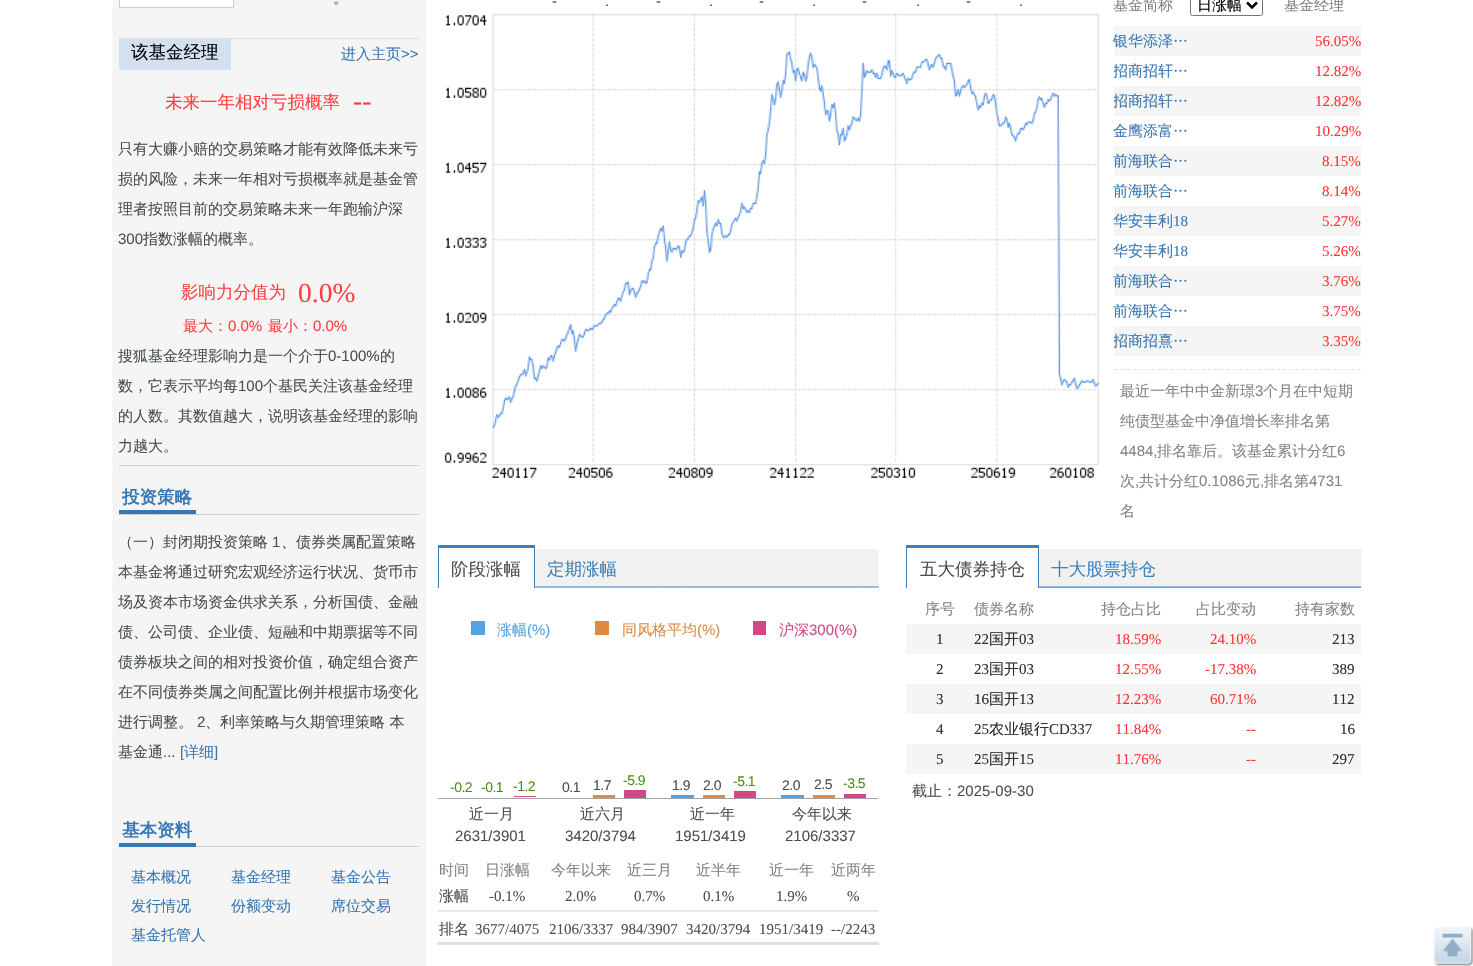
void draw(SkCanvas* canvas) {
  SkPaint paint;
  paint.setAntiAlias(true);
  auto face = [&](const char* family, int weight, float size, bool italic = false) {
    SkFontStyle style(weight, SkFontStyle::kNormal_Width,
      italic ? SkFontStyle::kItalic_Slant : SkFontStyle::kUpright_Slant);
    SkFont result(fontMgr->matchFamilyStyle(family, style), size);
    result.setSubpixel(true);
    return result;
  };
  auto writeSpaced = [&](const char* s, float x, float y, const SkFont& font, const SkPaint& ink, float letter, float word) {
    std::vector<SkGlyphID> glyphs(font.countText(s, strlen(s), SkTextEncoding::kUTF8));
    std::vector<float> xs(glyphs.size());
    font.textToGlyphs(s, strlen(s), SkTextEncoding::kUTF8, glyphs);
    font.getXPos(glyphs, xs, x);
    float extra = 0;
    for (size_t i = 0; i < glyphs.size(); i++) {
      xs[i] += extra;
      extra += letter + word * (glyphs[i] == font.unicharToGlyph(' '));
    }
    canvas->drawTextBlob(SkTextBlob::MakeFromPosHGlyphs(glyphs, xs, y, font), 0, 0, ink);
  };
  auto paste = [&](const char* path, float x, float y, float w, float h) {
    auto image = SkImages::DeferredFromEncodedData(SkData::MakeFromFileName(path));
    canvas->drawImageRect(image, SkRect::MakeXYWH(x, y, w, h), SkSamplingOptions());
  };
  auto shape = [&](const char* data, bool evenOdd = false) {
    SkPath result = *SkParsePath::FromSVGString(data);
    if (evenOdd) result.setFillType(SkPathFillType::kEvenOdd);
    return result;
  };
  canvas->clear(0xffffffff);
  paste("img/1.png", 112, 0, 314, 966);
  paint.setStroke(true);
  paint.setStrokeWidth(1);
  paint.setColor(0xffcccccc);
  canvas->drawRect(SkRect::MakeXYWH(119.5f, -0.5f, 114, 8), paint);
  paint.setStroke(false);
  {
    const struct { float x, y, w, h; SkColor color; } items[] = {
      {120, 0, 113, 7, 0xffffffff},
      {119, 38, 300, 1, 0xffdedddc},
      {119, 39, 112, 31, 0xffd3e1ef},
      {119, 465, 300, 1, 0xffcdcdcd},
      {119, 514, 300, 1, 0xffcdcdcd},
      {119, 510, 77, 4, 0xff3778b2},
      {196, 846, 223, 1, 0xffcdcdcd},
      {119, 843, 77, 4, 0xff3778b2},
    };
    for (auto [x, y, w, h, color] : items) {
      paint.setColor(color);
      canvas->drawRect(SkRect::MakeXYWH(x, y, w, h), paint);
    }
  }
  paste("img/2.png", 444, 12, 656, 466);
  paint.setStroke(true);
  paint.setColor(0xff767676);
  canvas->drawRoundRect(SkRect::MakeXYWH(1190.5f, -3.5f, 72, 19), 2, 2, paint);
  paint.setStrokeWidth(2.5f);
  paint.setColor(0xff000000);
  canvas->drawPath(shape("M1247 2.5L1252 7.5L1257 2.5"), paint);
  paint.setStroke(false);
  {
    const struct { float x, y, w, h; SkColor color; } items[] = {
      {1114, 26, 247, 30, 0xfff5f5f5},
      {1114, 86, 247, 30, 0xfff5f5f5},
      {1114, 146, 247, 30, 0xfff5f5f5},
      {1114, 206, 247, 30, 0xfff5f5f5},
      {1114, 266, 247, 30, 0xfff5f5f5},
      {1114, 326, 247, 30, 0xfff5f5f5},
    };
    for (auto [x, y, w, h, color] : items) {
      paint.setColor(color);
      canvas->drawRect(SkRect::MakeXYWH(x, y, w, h), paint);
    }
  }
  paint.setStroke(true);
  paint.setStrokeWidth(1.2f);
  paint.setColor(0xffe5e4e3);
  paint.setPathEffect(SkDashPathEffect::Make({{3.75f, 2.5f}}, 0));
  canvas->drawPath(shape("M1114 369.5H1361"), paint);
  paint.setPathEffect(nullptr);
  paste("img/3.png", 437, 549, 442, 39);
  paint.setStroke(false);
  {
    const struct { float x, y, w, h; SkColor color; } items[] = {
      {439, 549, 95, 39, 0xffffffff},
      {438, 545, 97, 3, 0xff3d82bd},
      {534, 545, 1, 43, 0xff3d82bd},
      {438, 545, 1, 43, 0xff3d82bd},
      {471, 621, 14, 14, 0xff54a2e0},
      {595, 621, 14, 14, 0xffdf8a43},
      {753, 621, 13, 14, 0xffd04985},
      {514, 796, 22, 1, 0xffd04985},
      {438, 798, 440, 1, 0xffa3a3a3},
      {593, 795, 22, 3, 0xffdf8a43},
      {624, 790, 22, 8, 0xffd04985},
      {671, 795, 23, 3, 0xff54a2e0},
      {703, 795, 22, 3, 0xffdf8a43},
      {734, 791, 22, 7, 0xffd04985},
      {781, 795, 23, 3, 0xff54a2e0},
      {813, 795, 22, 3, 0xffdf8a43},
      {844, 794, 22, 4, 0xffd04985},
    };
    for (auto [x, y, w, h, color] : items) {
      paint.setColor(color);
      canvas->drawRect(SkRect::MakeXYWH(x, y, w, h), paint);
    }
  }
  paste("img/4.png", 437, 910, 35, 2);
  paste("img/5.png", 471, 910, 73, 2);
  paste("img/6.png", 544, 910, 74, 2);
  paste("img/7.png", 617, 910, 65, 2);
  paste("img/8.png", 681, 910, 74, 2);
  paste("img/9.png", 755, 910, 73, 2);
  paste("img/10.png", 827, 910, 52, 2);
  paint.setColor(0xffe0e0e0);
  canvas->drawRect(SkRect::MakeXYWH(437, 942, 442, 3), paint);
  paste("img/11.png", 1039, 549, 323, 39);
  paste("img/12.png", 1039, 586, 323, 2);
  {
    const struct { float x, y, w, h; SkColor color; } items[] = {
      {906, 545, 133, 3, 0xff3d82bd},
      {1038, 545, 1, 43, 0xff3d82bd},
      {906, 545, 1, 43, 0xff3d82bd},
      {906, 624, 455, 30, 0xfff5f5f5},
      {906, 684, 455, 30, 0xfff5f5f5},
      {906, 744, 455, 30, 0xfff5f5f5},
    };
    for (auto [x, y, w, h, color] : items) {
      paint.setColor(color);
      canvas->drawRect(SkRect::MakeXYWH(x, y, w, h), paint);
    }
  }
  paste("img/13.png", 1433, 926, 40, 40);
  auto f0 = face("WenQuanYi Zen Hei", 500, 15);
  paint.setColor(0xff4a4f53);
  canvas->drawString("。", 333, 3, f0, paint);
  auto f1 = face("WenQuanYi Zen Hei", 500, 17.5f);
  paint.setColor(0xff010101);
  canvas->drawString("该基金经理", 131, 58, f1, paint);
  paint.setColor(0xff3777b4);
  canvas->drawString("进入主页", 341, 59, f0, paint);
  auto f2 = face("Liberation Sans", 400, 15);
  canvas->drawString(">>", 401, 59, f2, paint);
  paint.setColor(0xffff3f3f);
  canvas->drawString("未来一年相对亏损概率", 165, 108, f1, paint);
  auto f3 = face("Liberation Serif", 400, 27.5f);
  canvas->drawString("--", 353, 110, f3, paint);
  paint.setColor(0xff4a4f53);
  {
    const struct { const char* s; float x, y; } items[] = {
      {"只有大赚小赔的交易策略才能有效降低未来亏", 118, 154},
      {"损的风险，未来一年相对亏损概率就是基金管", 118, 184},
      {"理者按照目前的交易策略未来一年跑输沪深", 118, 214},
    };
    for (auto [s, x, y] : items) {
      canvas->drawString(s, x, y, f0, paint);
    }
  }
  canvas->drawString("300", 118, 244, f2, paint);
  canvas->drawString("指数涨幅的概率。", 143, 244, f0, paint);
  paint.setColor(0xffff3f3f);
  canvas->drawString("影响力分值为", 181, 298, f1, paint);
  canvas->drawString("0.0%", 298, 302, f3, paint);
  canvas->drawString("最大：", 183, 331, f0, paint);
  canvas->drawString("0.0%", 228, 331, f2, paint);
  canvas->drawString("最小：", 268, 331, f0, paint);
  canvas->drawString("0.0%", 313, 331, f2, paint);
  paint.setColor(0xff4a4f53);
  canvas->drawString("搜狐基金经理影响力是一个介于", 118, 361, f0, paint);
  canvas->drawString("0-100%", 328, 361, f2, paint);
  canvas->drawString("的", 380, 361, f0, paint);
  canvas->drawString("数，它表示平均每", 118, 391, f0, paint);
  canvas->drawString("100", 238, 391, f2, paint);
  {
    const struct { const char* s; float x, y; } items[] = {
      {"个基民关注该基金经理", 263, 391},
      {"的人数。其数值越大，说明该基金经理的影响", 118, 421},
      {"力越大。", 118, 451},
    };
    for (auto [s, x, y] : items) {
      canvas->drawString(s, x, y, f0, paint);
    }
  }
  auto f4 = face("WenQuanYi Zen Hei", 700, 17.5f);
  paint.setColor(0xff3777b4);
  canvas->drawString("投资策略", 122, 503, f4, paint);
  paint.setColor(0xff4a4f53);
  canvas->drawString("（一）封闭期投资策略", 118, 547, f0, paint);
  canvas->drawString("1", 272, 547, f2, paint);
  {
    const struct { const char* s; float x, y; } items[] = {
      {"、债券类属配置策略", 281, 547},
      {"本基金将通过研究宏观经济运行状况、货币市", 118, 577},
      {"场及资本市场资金供求关系，分析国债、金融", 118, 607},
      {"债、公司债、企业债、短融和中期票据等不同", 118, 637},
      {"债券板块之间的相对投资价值，确定组合资产", 118, 667},
      {"在不同债券类属之间配置比例并根据市场变化", 118, 697},
      {"进行调整。", 118, 727},
    };
    for (auto [s, x, y] : items) {
      canvas->drawString(s, x, y, f0, paint);
    }
  }
  canvas->drawString("2", 197, 727, f2, paint);
  canvas->drawString("、利率策略与久期管理策略 本", 205, 727, f0, paint);
  canvas->drawString("基金通", 118, 757, f0, paint);
  canvas->drawString("...", 163, 757, f2, paint);
  paint.setColor(0xff3777b4);
  canvas->drawString("[", 180, 757, f2, paint);
  canvas->drawString("详细", 184, 757, f0, paint);
  canvas->drawString("]", 214, 757, f2, paint);
  canvas->drawString("基本资料", 122, 836, f4, paint);
  {
    const struct { const char* s; float x, y; } items[] = {
      {"基本概况", 131, 882},
      {"基金经理", 231, 882},
      {"基金公告", 331, 882},
      {"发行情况", 131, 911},
      {"份额变动", 231, 911},
      {"席位交易", 331, 911},
      {"基金托管人", 131, 940},
    };
    for (auto [s, x, y] : items) {
      canvas->drawString(s, x, y, f0, paint);
    }
  }
  paint.setColor(0xff4a4f53);
  {
    const struct { const char* s; float x, y; } items[] = {
      {"-", 552, 6},
      {"-", 656, 6},
      {"-", 759, 6},
      {"-", 862, 6},
      {"-", 966, 6},
      {".", 605, 6},
      {".", 709, 6},
      {".", 812, 6},
      {".", 916, 6},
      {".", 1019, 6},
    };
    for (auto [s, x, y] : items) {
      canvas->drawString(s, x, y, f2, paint);
    }
  }
  paint.setColor(0xff838383);
  canvas->drawString("基金简称", 1113, 10, f0, paint);
  paint.setColor(0xff010101);
  canvas->drawString("日涨幅", 1197, 10, f0, paint);
  paint.setColor(0xff838383);
  canvas->drawString("基金经理", 1284, 10, f0, paint);
  paint.setColor(0xff3777b4);
  canvas->drawString("银华添泽…", 1113, 46, f0, paint);
  auto f5 = face("Liberation Serif", 400, 15);
  paint.setColor(0xffff3333);
  canvas->drawString("56.05%", 1315, 46, f5, paint);
  canvas->save();
  canvas->clipRect(SkRect::MakeXYWH(1114, 56, 81, 30));
  paint.setColor(0xff3777b4);
  canvas->drawString("招商招轩…", 1113, 76, f0, paint);
  canvas->restore();
  paint.setColor(0xffff3333);
  canvas->drawString("12.82%", 1315, 76, f5, paint);
  canvas->save();
  canvas->clipRect(SkRect::MakeXYWH(1114, 86, 81, 30));
  paint.setColor(0xff3777b4);
  canvas->drawString("招商招轩…", 1113, 106, f0, paint);
  canvas->restore();
  paint.setColor(0xffff3333);
  canvas->drawString("12.82%", 1315, 106, f5, paint);
  paint.setColor(0xff3777b4);
  canvas->drawString("金鹰添富…", 1113, 136, f0, paint);
  paint.setColor(0xffff3333);
  canvas->drawString("10.29%", 1315, 136, f5, paint);
  paint.setColor(0xff3777b4);
  canvas->drawString("前海联合…", 1113, 166, f0, paint);
  paint.setColor(0xffff3333);
  canvas->drawString("8.15%", 1322, 166, f5, paint);
  paint.setColor(0xff3777b4);
  canvas->drawString("前海联合…", 1113, 196, f0, paint);
  paint.setColor(0xffff3333);
  canvas->drawString("8.14%", 1322, 196, f5, paint);
  paint.setColor(0xff3777b4);
  canvas->drawString("华安丰利", 1113, 226, f0, paint);
  canvas->drawString("18", 1173, 226, f5, paint);
  paint.setColor(0xffff3333);
  canvas->drawString("5.27%", 1322, 226, f5, paint);
  paint.setColor(0xff3777b4);
  canvas->drawString("华安丰利", 1113, 256, f0, paint);
  canvas->drawString("18", 1173, 256, f5, paint);
  paint.setColor(0xffff3333);
  canvas->drawString("5.26%", 1322, 256, f5, paint);
  paint.setColor(0xff3777b4);
  canvas->drawString("前海联合…", 1113, 286, f0, paint);
  paint.setColor(0xffff3333);
  canvas->drawString("3.76%", 1322, 286, f5, paint);
  paint.setColor(0xff3777b4);
  canvas->drawString("前海联合…", 1113, 316, f0, paint);
  paint.setColor(0xffff3333);
  canvas->drawString("3.75%", 1322, 316, f5, paint);
  canvas->save();
  canvas->clipRect(SkRect::MakeXYWH(1114, 326, 81, 30));
  paint.setColor(0xff3777b4);
  canvas->drawString("招商招熹…", 1113, 346, f0, paint);
  canvas->restore();
  paint.setColor(0xffff3333);
  canvas->drawString("3.35%", 1322, 346, f5, paint);
  paint.setColor(0xff838383);
  canvas->drawString("最近一年中中金新璟", 1120, 396, f0, paint);
  canvas->drawString("3", 1255, 396, f2, paint);
  canvas->drawString("个月在中短期", 1263, 396, f0, paint);
  canvas->drawString("纯债型基金中净值增长率排名第", 1120, 426, f0, paint);
  canvas->drawString("4484,", 1120, 456, f2, paint);
  canvas->drawString("排名靠后。该基金累计分红", 1157, 456, f0, paint);
  canvas->drawString("6", 1337, 456, f2, paint);
  canvas->drawString("次", 1120, 486, f0, paint);
  canvas->drawString(",", 1135, 486, f2, paint);
  canvas->drawString("共计分红", 1139, 486, f0, paint);
  canvas->drawString("0.1086", 1199, 486, f2, paint);
  canvas->drawString("元", 1245, 486, f0, paint);
  canvas->drawString(",", 1260, 486, f2, paint);
  canvas->drawString("排名第", 1264, 486, f0, paint);
  canvas->drawString("4731", 1309, 486, f2, paint);
  canvas->drawString("名", 1120, 516, f0, paint);
  paint.setColor(0xff4a4f53);
  canvas->drawString("阶段涨幅", 451, 575, f1, paint);
  paint.setColor(0xff3d83bd);
  canvas->drawString("定期涨幅", 547, 575, f1, paint);
  paint.setColor(0xff54a2e0);
  canvas->drawString("涨幅", 497, 635, f0, paint);
  canvas->drawString("(%)", 527, 635, f2, paint);
  paint.setColor(0xffdf8a43);
  canvas->drawString("同风格平均", 622, 635, f0, paint);
  canvas->drawString("(%)", 697, 635, f2, paint);
  paint.setColor(0xffd04985);
  canvas->drawString("沪深", 779, 635, f0, paint);
  canvas->drawString("300(%)", 809, 635, f2, paint);
  auto f6 = face("Liberation Sans", 400, 14);
  paint.setColor(0xff479111);
  {
    const struct { const char* s; float x, y; } items[] = {
      {"-0.2", 450, 792},
      {"-0.1", 481, 792},
      {"-1.2", 513, 791},
    };
    for (auto [s, x, y] : items) {
      writeSpaced(s, x, y, f6, paint, -0.5f, 0);
    }
  }
  paint.setColor(0xff4a4f53);
  canvas->drawString("近一月", 469, 819, f0, paint);
  canvas->drawString("2631/3901", 455, 841, f2, paint);
  writeSpaced("0.1", 562, 792, f6, paint, -0.5f, 0);
  writeSpaced("1.7", 593, 790, f6, paint, -0.5f, 0);
  paint.setColor(0xff479111);
  writeSpaced("-5.9", 623, 785, f6, paint, -0.5f, 0);
  paint.setColor(0xff4a4f53);
  canvas->drawString("近六月", 580, 819, f0, paint);
  canvas->drawString("3420/3794", 565, 841, f2, paint);
  writeSpaced("1.9", 672, 790, f6, paint, -0.5f, 0);
  writeSpaced("2.0", 703, 790, f6, paint, -0.5f, 0);
  paint.setColor(0xff479111);
  writeSpaced("-5.1", 733, 786, f6, paint, -0.5f, 0);
  paint.setColor(0xff4a4f53);
  canvas->drawString("近一年", 690, 819, f0, paint);
  canvas->drawString("1951/3419", 675, 841, f2, paint);
  writeSpaced("2.0", 782, 790, f6, paint, -0.5f, 0);
  writeSpaced("2.5", 814, 789, f6, paint, -0.5f, 0);
  paint.setColor(0xff479111);
  writeSpaced("-3.5", 843, 788, f6, paint, -0.5f, 0);
  paint.setColor(0xff4a4f53);
  canvas->drawString("今年以来", 792, 819, f0, paint);
  canvas->drawString("2106/3337", 785, 841, f2, paint);
  paint.setColor(0xff838383);
  {
    const struct { const char* s; float x, y; } items[] = {
      {"时间", 439, 875},
      {"日涨幅", 485, 875},
      {"今年以来", 551, 875},
      {"近三月", 627, 875},
      {"近半年", 696, 875},
      {"近一年", 769, 875},
      {"近两年", 831, 875},
    };
    for (auto [s, x, y] : items) {
      canvas->drawString(s, x, y, f0, paint);
    }
  }
  paint.setColor(0xff4a4f53);
  canvas->drawString("涨幅", 439, 901, f0, paint);
  {
    const struct { const char* s; float x, y; } items[] = {
      {"-0.1%", 489, 901},
      {"2.0%", 565, 901},
      {"0.7%", 634, 901},
      {"0.1%", 703, 901},
      {"1.9%", 776, 901},
      {"%", 847, 901},
    };
    for (auto [s, x, y] : items) {
      canvas->drawString(s, x, y, f5, paint);
    }
  }
  canvas->drawString("排名", 439, 934, f0, paint);
  {
    const struct { const char* s; float x, y; } items[] = {
      {"3677/4075", 475, 934},
      {"2106/3337", 549, 934},
      {"984/3907", 621, 934},
      {"3420/3794", 686, 934},
      {"1951/3419", 759, 934},
      {"--/2243", 831, 934},
    };
    for (auto [s, x, y] : items) {
      canvas->drawString(s, x, y, f5, paint);
    }
  }
  canvas->drawString("五大债券持仓", 920, 575, f1, paint);
  paint.setColor(0xff3d83bd);
  canvas->drawString("十大股票持仓", 1051, 575, f1, paint);
  paint.setColor(0xff838383);
  {
    const struct { const char* s; float x, y; } items[] = {
      {"序号", 925, 614},
      {"债券名称", 974, 614},
      {"持仓占比", 1101, 614},
      {"占比变动", 1196, 614},
      {"持有家数", 1295, 614},
    };
    for (auto [s, x, y] : items) {
      canvas->drawString(s, x, y, f0, paint);
    }
  }
  paint.setColor(0xff2e2e2e);
  canvas->drawString("1", 936, 644, f5, paint);
  canvas->drawString("22", 974, 644, f5, paint);
  canvas->drawString("国开", 989, 644, f0, paint);
  canvas->drawString("03", 1019, 644, f5, paint);
  paint.setColor(0xffff3333);
  canvas->drawString("18.59%", 1115, 644, f5, paint);
  canvas->drawString("24.10%", 1210, 644, f5, paint);
  paint.setColor(0xff2e2e2e);
  {
    const struct { const char* s; float x, y; } items[] = {
      {"213", 1332, 644},
      {"2", 936, 674},
      {"23", 974, 674},
    };
    for (auto [s, x, y] : items) {
      canvas->drawString(s, x, y, f5, paint);
    }
  }
  canvas->drawString("国开", 989, 674, f0, paint);
  canvas->drawString("03", 1019, 674, f5, paint);
  paint.setColor(0xffff3333);
  canvas->drawString("12.55%", 1115, 674, f5, paint);
  canvas->drawString("-17.38%", 1205, 674, f5, paint);
  paint.setColor(0xff2e2e2e);
  {
    const struct { const char* s; float x, y; } items[] = {
      {"389", 1332, 674},
      {"3", 936, 704},
      {"16", 974, 704},
    };
    for (auto [s, x, y] : items) {
      canvas->drawString(s, x, y, f5, paint);
    }
  }
  canvas->drawString("国开", 989, 704, f0, paint);
  canvas->drawString("13", 1019, 704, f5, paint);
  paint.setColor(0xffff3333);
  canvas->drawString("12.23%", 1115, 704, f5, paint);
  canvas->drawString("60.71%", 1210, 704, f5, paint);
  paint.setColor(0xff2e2e2e);
  {
    const struct { const char* s; float x, y; } items[] = {
      {"112", 1332, 704},
      {"4", 936, 734},
      {"25", 974, 734},
    };
    for (auto [s, x, y] : items) {
      canvas->drawString(s, x, y, f5, paint);
    }
  }
  canvas->drawString("农业银行", 989, 734, f0, paint);
  canvas->drawString("CD337", 1049, 734, f5, paint);
  paint.setColor(0xffff3333);
  canvas->drawString("11.84%", 1115, 734, f5, paint);
  canvas->drawString("--", 1246, 734, f5, paint);
  paint.setColor(0xff2e2e2e);
  {
    const struct { const char* s; float x, y; } items[] = {
      {"16", 1340, 734},
      {"5", 936, 764},
      {"25", 974, 764},
    };
    for (auto [s, x, y] : items) {
      canvas->drawString(s, x, y, f5, paint);
    }
  }
  canvas->drawString("国开", 989, 764, f0, paint);
  canvas->drawString("15", 1019, 764, f5, paint);
  paint.setColor(0xffff3333);
  canvas->drawString("11.76%", 1115, 764, f5, paint);
  canvas->drawString("--", 1246, 764, f5, paint);
  paint.setColor(0xff2e2e2e);
  canvas->drawString("297", 1332, 764, f5, paint);
  paint.setColor(0xff4a4f53);
  canvas->drawString("截止：", 912, 796, f0, paint);
  canvas->drawString("2025-09-30", 957, 796, f2, paint);
}
